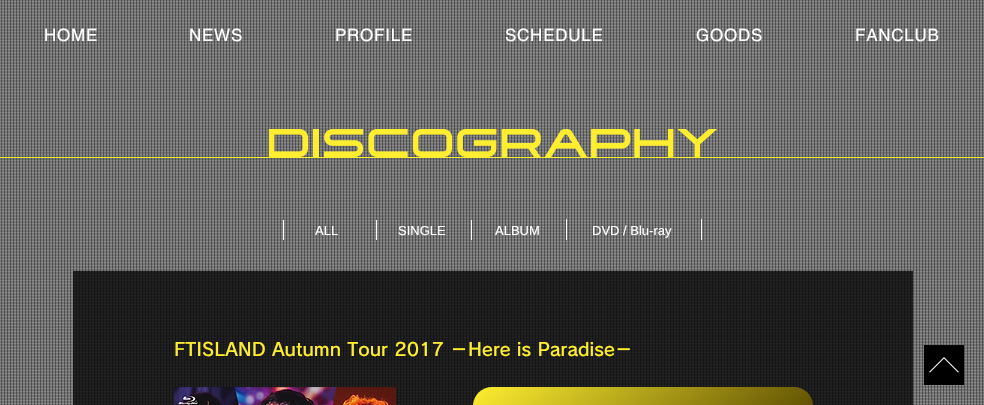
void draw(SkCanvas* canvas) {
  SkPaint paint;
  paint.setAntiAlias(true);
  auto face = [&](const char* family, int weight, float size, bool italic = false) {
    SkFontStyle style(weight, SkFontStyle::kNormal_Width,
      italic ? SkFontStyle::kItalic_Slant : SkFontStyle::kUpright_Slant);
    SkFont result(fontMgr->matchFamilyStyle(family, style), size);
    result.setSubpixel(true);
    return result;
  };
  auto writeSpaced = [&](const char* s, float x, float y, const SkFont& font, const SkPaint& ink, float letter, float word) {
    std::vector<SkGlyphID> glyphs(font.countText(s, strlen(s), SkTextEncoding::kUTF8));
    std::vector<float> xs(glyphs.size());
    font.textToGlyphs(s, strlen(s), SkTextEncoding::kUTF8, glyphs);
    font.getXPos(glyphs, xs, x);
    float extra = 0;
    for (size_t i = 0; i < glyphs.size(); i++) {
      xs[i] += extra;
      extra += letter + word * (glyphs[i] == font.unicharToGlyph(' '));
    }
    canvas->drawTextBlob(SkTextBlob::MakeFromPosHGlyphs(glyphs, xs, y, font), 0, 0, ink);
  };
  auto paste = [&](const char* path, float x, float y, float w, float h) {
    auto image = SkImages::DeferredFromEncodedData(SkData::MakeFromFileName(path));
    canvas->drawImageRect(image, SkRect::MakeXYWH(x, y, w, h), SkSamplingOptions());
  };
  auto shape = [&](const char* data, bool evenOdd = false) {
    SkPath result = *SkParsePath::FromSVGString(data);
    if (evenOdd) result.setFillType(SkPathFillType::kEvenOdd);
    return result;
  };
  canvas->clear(0xff8d8d8d);
  paste("img/1.png", 0, 0, 984, 405);
  paste("img/2.png", 268, 129, 449, 28);
  {
    const struct { float x, y, w, h; SkColor color; } items[] = {
      {0, 157, 984, 1, 0xffffee30},
      {283, 220, 1, 20, 0xffffffff},
      {376, 220, 1, 20, 0xffffffff},
      {471, 220, 1, 20, 0xffffffff},
      {566, 219, 1, 21, 0xffffffff},
      {701, 219, 1, 21, 0xffffffff},
      {73, 271, 840, 134, 0xbf000000},
    };
    for (auto [x, y, w, h, color] : items) {
      paint.setColor(color);
      canvas->drawRect(SkRect::MakeXYWH(x, y, w, h), paint);
    }
  }
  paste("img/3.png", 174, 387, 222, 18);
  {
    const SkColor colors[] = {0xffffee30, 0xff554700};
    const float stops[] = {0, 1};
    const SkPoint ends[] = {{566, 312}, {720, 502}};
    paint.setShader(SkGradientShader::MakeLinear(ends, colors, stops, 2, SkTileMode::kClamp));
    paint.setAlpha(255);
  }
  canvas->drawRoundRect(SkRect::MakeXYWH(473, 387, 340, 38), 20, 20, paint);
  paint.setShader(nullptr);
  paint.setColor(0xff000000);
  canvas->drawRect(SkRect::MakeXYWH(924, 345, 40, 40), paint);
  paint.setColor(0xffffffff);
  canvas->drawPath(shape("M958 372.5L944 358.5L930 372.5L929 372L944 357L959 372Z"), paint);
  auto f0 = face("helvetica", 400, 17);
  {
    const struct { const char* s; float x, y; } items[] = {
      {"HOME", 44, 41},
      {"NEWS", 189, 41},
      {"PROFILE", 335, 41},
      {"SCHEDULE", 505, 41},
      {"GOODS", 696, 41},
      {"FANCLUB", 855, 41},
    };
    for (auto [s, x, y] : items) {
      writeSpaced(s, x, y, f0, paint, 0.75f, 0);
    }
  }
  auto f1 = face("Liberation Sans", 400, 13);
  {
    const struct { const char* s; float x, y; } items[] = {
      {"ALL", 315, 235},
      {"SINGLE", 398, 235},
      {"ALBUM", 495, 235},
      {"DVD / Blu-ray", 592, 235},
    };
    for (auto [s, x, y] : items) {
      canvas->drawString(s, x, y, f1, paint);
    }
  }
  auto f2 = face("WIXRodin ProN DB", 600, 18);
  paint.setColor(0xffffee30);
  canvas->drawString("FTISLAND Autumn Tour 2017 －Here is Paradise－", 174, 356, f2, paint);
}
